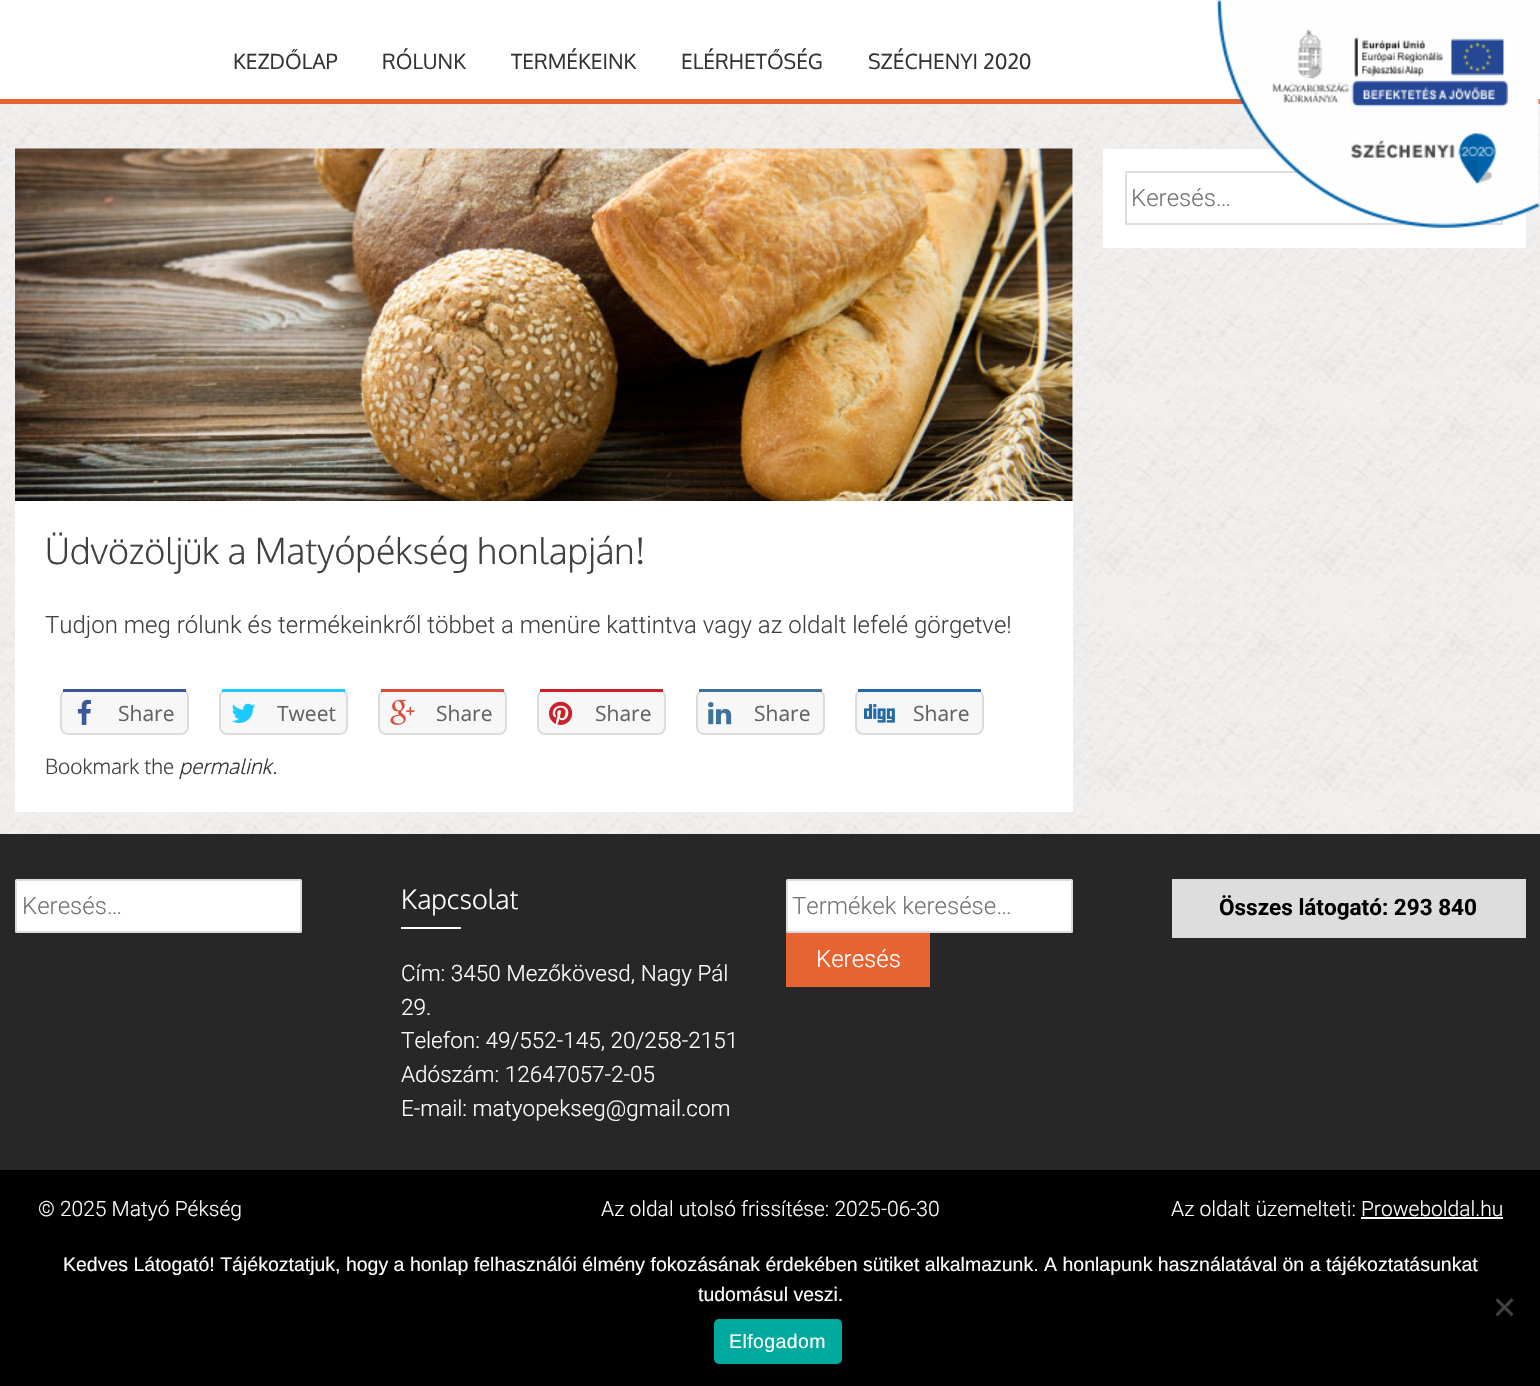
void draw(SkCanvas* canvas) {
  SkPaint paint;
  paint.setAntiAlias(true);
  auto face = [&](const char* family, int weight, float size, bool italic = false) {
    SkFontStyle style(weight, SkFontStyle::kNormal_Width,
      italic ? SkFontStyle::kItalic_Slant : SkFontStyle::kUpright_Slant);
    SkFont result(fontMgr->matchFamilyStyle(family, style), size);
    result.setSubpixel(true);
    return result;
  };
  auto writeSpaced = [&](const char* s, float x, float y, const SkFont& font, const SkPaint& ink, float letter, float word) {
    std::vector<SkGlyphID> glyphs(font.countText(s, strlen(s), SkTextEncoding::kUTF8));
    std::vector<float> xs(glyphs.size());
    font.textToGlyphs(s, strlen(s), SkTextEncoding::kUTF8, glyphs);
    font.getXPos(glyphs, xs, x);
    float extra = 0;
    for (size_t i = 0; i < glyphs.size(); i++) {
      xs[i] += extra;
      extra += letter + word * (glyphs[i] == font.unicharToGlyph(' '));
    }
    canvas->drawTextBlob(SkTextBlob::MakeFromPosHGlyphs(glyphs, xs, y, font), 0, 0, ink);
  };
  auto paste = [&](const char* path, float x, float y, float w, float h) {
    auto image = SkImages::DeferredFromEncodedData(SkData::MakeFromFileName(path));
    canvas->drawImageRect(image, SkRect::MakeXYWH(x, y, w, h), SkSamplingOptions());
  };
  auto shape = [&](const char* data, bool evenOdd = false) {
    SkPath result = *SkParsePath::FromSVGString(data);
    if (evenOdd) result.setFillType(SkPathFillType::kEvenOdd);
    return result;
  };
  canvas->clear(0xffffffff);
  paste("img/1.png", 0, 104, 1540, 730);
  paint.setColor(0xffe66432);
  canvas->drawRect(SkRect::MakeXYWH(0, 99, 1540, 5), paint);
  paint.setColor(0xffffffff);
  canvas->drawRect(SkRect::MakeXYWH(1103, 149, 423, 99), paint);
  paint.setStroke(true);
  paint.setStrokeWidth(2);
  paint.setColor(0xffdddddd);
  canvas->drawRoundRect(SkRect::MakeXYWH(1126, 172, 376, 52), 0.5f, 0.5f, paint);
  paint.setStroke(false);
  paint.setColor(0xffffffff);
  canvas->drawRect(SkRect::MakeXYWH(15, 149, 1058, 663), paint);
  paste("img/3.png", 15, 148, 1058, 353);
  paint.setColor(0xfff7f7f7);
  canvas->drawRoundRect(SkRect::MakeXYWH(61, 690, 127, 44), 7, 7, paint);
  paint.setStroke(true);
  paint.setColor(0xffdcdcdc);
  canvas->drawRoundRect(SkRect::MakeXYWH(61, 690, 127, 44), 7, 7, paint);
  paint.setStroke(false);
  paint.setColor(0xff3b5998);
  canvas->drawRect(SkRect::MakeXYWH(63, 689, 123, 3), paint);
  paste("img/4.png", 77, 699, 14, 26);
  paint.setColor(0xfff7f7f7);
  canvas->drawRoundRect(SkRect::MakeXYWH(220, 690, 127, 44), 7, 7, paint);
  paint.setStroke(true);
  paint.setColor(0xffdcdcdc);
  canvas->drawRoundRect(SkRect::MakeXYWH(220, 690, 127, 44), 7, 7, paint);
  paint.setStroke(false);
  paint.setColor(0xff1dcaff);
  canvas->drawRect(SkRect::MakeXYWH(222, 689, 123, 3), paint);
  paste("img/5.png", 231, 703, 25, 20);
  paint.setColor(0xfff7f7f7);
  canvas->drawRoundRect(SkRect::MakeXYWH(379, 690, 127, 44), 7, 7, paint);
  paint.setStroke(true);
  paint.setColor(0xffdcdcdc);
  canvas->drawRoundRect(SkRect::MakeXYWH(379, 690, 127, 44), 7, 7, paint);
  paint.setStroke(false);
  paint.setColor(0xffdd4b39);
  canvas->drawRect(SkRect::MakeXYWH(381, 689, 123, 3), paint);
  paste("img/6.png", 390, 699, 25, 26);
  paint.setColor(0xfff7f7f7);
  canvas->drawRoundRect(SkRect::MakeXYWH(538, 690, 127, 44), 7, 7, paint);
  paint.setStroke(true);
  paint.setColor(0xffdcdcdc);
  canvas->drawRoundRect(SkRect::MakeXYWH(538, 690, 127, 44), 7, 7, paint);
  paint.setStroke(false);
  paint.setColor(0xffc92228);
  canvas->drawRect(SkRect::MakeXYWH(540, 689, 123, 3), paint);
  paste("img/7.png", 549, 701, 24, 24);
  paint.setColor(0xfff7f7f7);
  canvas->drawRoundRect(SkRect::MakeXYWH(697, 690, 127, 44), 7, 7, paint);
  paint.setStroke(true);
  paint.setColor(0xffdcdcdc);
  canvas->drawRoundRect(SkRect::MakeXYWH(697, 690, 127, 44), 7, 7, paint);
  paint.setStroke(false);
  paint.setColor(0xff3f729b);
  canvas->drawRect(SkRect::MakeXYWH(699, 689, 123, 3), paint);
  paste("img/8.png", 708, 702, 24, 23);
  paint.setColor(0xfff7f7f7);
  canvas->drawRoundRect(SkRect::MakeXYWH(856, 690, 127, 44), 7, 7, paint);
  paint.setStroke(true);
  paint.setColor(0xffdcdcdc);
  canvas->drawRoundRect(SkRect::MakeXYWH(856, 690, 127, 44), 7, 7, paint);
  paint.setStroke(false);
  paint.setColor(0xff2169a8);
  canvas->drawRect(SkRect::MakeXYWH(858, 689, 123, 3), paint);
  paste("img/9.png", 864, 704, 31, 19);
  paint.setColor(0xff000000);
  canvas->drawRect(SkRect::MakeXYWH(0, 1170, 1540, 216), paint);
  paint.setColor(0xff272727);
  canvas->drawRect(SkRect::MakeXYWH(0, 834, 1540, 336), paint);
  paint.setColor(0xffffffff);
  canvas->drawRoundRect(SkRect::MakeXYWH(16, 880, 285, 52), 0.5f, 0.5f, paint);
  paint.setStroke(true);
  paint.setColor(0xffdddddd);
  canvas->drawRoundRect(SkRect::MakeXYWH(16, 880, 285, 52), 0.5f, 0.5f, paint);
  paint.setStroke(false);
  paint.setColor(0xffffffff);
  canvas->drawRect(SkRect::MakeXYWH(401, 927, 60, 2), paint);
  canvas->drawRoundRect(SkRect::MakeXYWH(787, 880, 285, 52), 0.5f, 0.5f, paint);
  paint.setStroke(true);
  paint.setColor(0xffdddddd);
  canvas->drawRoundRect(SkRect::MakeXYWH(787, 880, 285, 52), 0.5f, 0.5f, paint);
  paint.setStroke(false);
  {
    const struct { float x, y, w, h; SkColor color; } items[] = {
      {786, 933, 144, 54, 0xffe66432},
      {1172, 879, 354, 59, 0xffdddddd},
      {1361, 1217, 142, 2, 0xffffffff},
    };
    for (auto [x, y, w, h, color] : items) {
      paint.setColor(color);
      canvas->drawRect(SkRect::MakeXYWH(x, y, w, h), paint);
    }
  }
  paint.setColor(0xff404040);
  canvas->drawPath(shape("M1511.5 1298L1513.5 1300.5L1497.5 1316.5L1495.5 1314Z"), paint);
  canvas->drawPath(shape("M1495.5 1300.5L1497.5 1298L1513.5 1314L1511.5 1316.5Z"), paint);
  paint.setColor(0xff00a99d);
  canvas->drawRoundRect(SkRect::MakeXYWH(714, 1319, 128, 45), 5, 5, paint);
  auto f0 = face("Oxygen", 400, 21);
  paint.setColor(0xff333333);
  {
    const struct { const char* s; float x, y; } items[] = {
      {"KEZDŐLAP", 233, 69},
      {"RÓLUNK", 382, 69},
      {"TERMÉKEINK", 511, 69},
      {"ELÉRHETŐSÉG", 681, 69},
      {"SZÉCHENYI 2020", 868, 69},
    };
    for (auto [s, x, y] : items) {
      canvas->drawString(s, x, y, f0, paint);
    }
  }
  auto f1 = face("Roboto", 300, 24);
  paint.setColor(0xff757575);
  canvas->drawString("Keresés…", 1131, 206, f1, paint);
  paste("img/2.png", 1216, 0, 324, 228);
  auto f2 = face("Oxygen", 300, 36);
  paint.setColor(0xff404040);
  canvas->drawString("Üdvözöljük a Matyópékség honlapján!", 45, 564, f2, paint);
  canvas->drawString("Tudjon meg rólunk és termékeinkről többet a menüre kattintva vagy az oldalt lefelé görgetve!", 45, 633, f1, paint);
  auto f3 = face("Open Sans", 400, 21);
  paint.setColor(0xff636363);
  {
    const struct { const char* s; float x, y; } items[] = {
      {"Share", 118, 721},
      {"Tweet", 277, 721},
      {"Share", 436, 721},
      {"Share", 595, 721},
      {"Share", 754, 721},
      {"Share", 913, 721},
    };
    for (auto [s, x, y] : items) {
      canvas->drawString(s, x, y, f3, paint);
    }
  }
  auto f4 = face("Oxygen", 300, 21);
  paint.setColor(0xff404040);
  canvas->drawString("Bookmark the", 45, 774, f4, paint);
  auto f5 = face("Oxygen", 300, 21, true);
  paint.setColor(0xff333333);
  canvas->drawString("permalink", 179, 774, f5, paint);
  paint.setColor(0xff404040);
  canvas->drawString(".", 272, 774, f4, paint);
  paint.setColor(0xff757575);
  canvas->drawString("Keresés…", 22, 914, f1, paint);
  auto f6 = face("Oxygen", 300, 27);
  paint.setColor(0xffffffff);
  canvas->drawString("Kapcsolat", 401, 909, f6, paint);
  auto f7 = face("Roboto", 300, 22.5f);
  {
    const struct { const char* s; float x, y; } items[] = {
      {"Cím: 3450 Mezőkövesd, Nagy Pál", 401, 981},
      {"29.", 401, 1015},
      {"Telefon: 49/552-145, 20/258-2151", 401, 1048},
      {"Adószám: 12647057-2-05", 401, 1082},
      {"E-mail: matyopekseg@gmail.com", 401, 1116},
    };
    for (auto [s, x, y] : items) {
      canvas->drawString(s, x, y, f7, paint);
    }
  }
  paint.setColor(0xff757575);
  canvas->drawString("Termékek keresése…", 792, 914, f1, paint);
  paint.setColor(0xffffffff);
  canvas->drawString("Keresés", 816, 967, f1, paint);
  auto f8 = face("Roboto", 700, 22.5f);
  paint.setColor(0xff000000);
  canvas->drawString("Összes látogató: 293 840", 1219, 915, f8, paint);
  auto f9 = face("Roboto", 300, 21);
  paint.setColor(0xffffffff);
  {
    const struct { const char* s; float x, y; } items[] = {
      {"© 2025 Matyó Pékség", 38, 1216},
      {"Az oldal utolsó frissítése: 2025-06-30", 601, 1216},
      {"Az oldalt üzemelteti: Proweboldal.hu", 1171, 1216},
    };
    for (auto [s, x, y] : items) {
      canvas->drawString(s, x, y, f9, paint);
    }
  }
  auto f10 = face("Liberation Sans", 400, 19.5f);
  canvas->drawString("Kedves Látogató! Tájékoztatjuk, hogy a honlap felhasználói élmény fokozásának érdekében sütiket alkalmazunk. A honlapunk használatával ön a tájékoztatásunkat", 63, 1271, f10, paint);
  canvas->drawString("tudomásul veszi.", 698, 1301, f10, paint);
  writeSpaced("Elfogadom", 729, 1348, f10, paint, 0.4f, 0);
}
